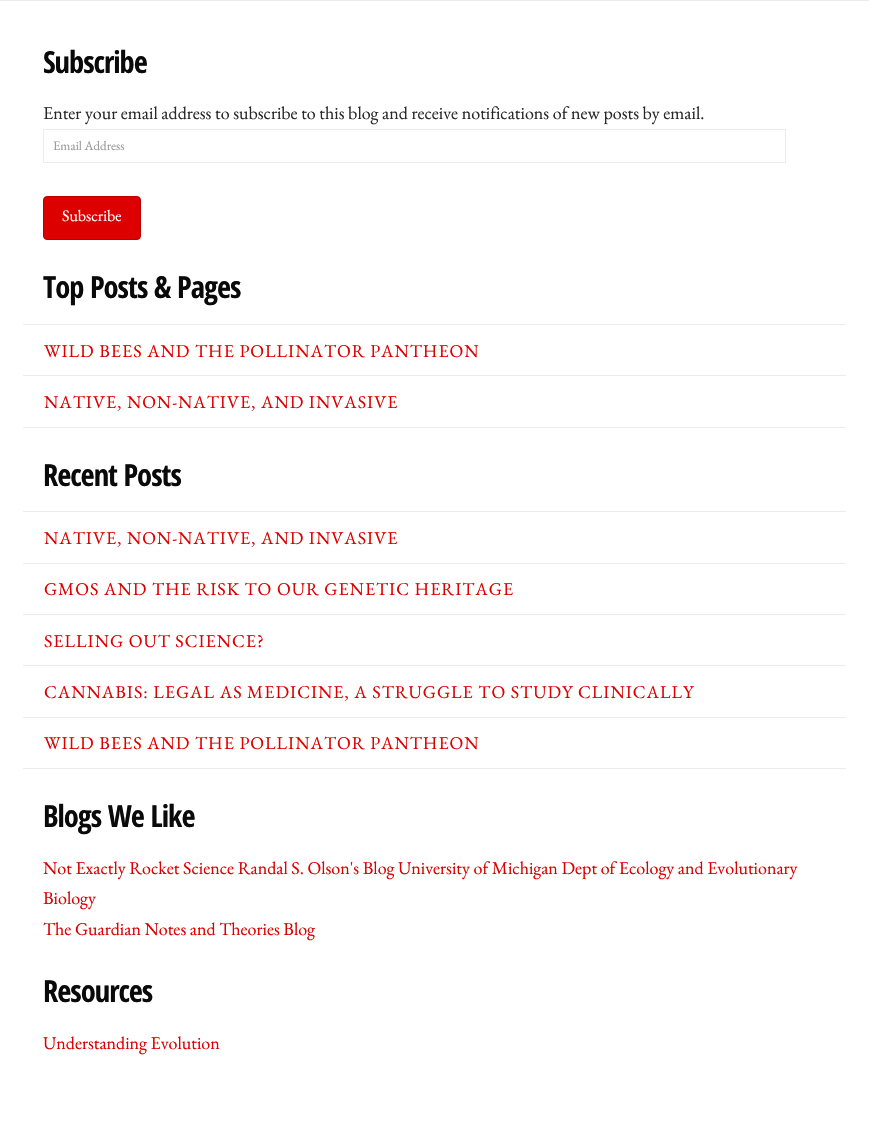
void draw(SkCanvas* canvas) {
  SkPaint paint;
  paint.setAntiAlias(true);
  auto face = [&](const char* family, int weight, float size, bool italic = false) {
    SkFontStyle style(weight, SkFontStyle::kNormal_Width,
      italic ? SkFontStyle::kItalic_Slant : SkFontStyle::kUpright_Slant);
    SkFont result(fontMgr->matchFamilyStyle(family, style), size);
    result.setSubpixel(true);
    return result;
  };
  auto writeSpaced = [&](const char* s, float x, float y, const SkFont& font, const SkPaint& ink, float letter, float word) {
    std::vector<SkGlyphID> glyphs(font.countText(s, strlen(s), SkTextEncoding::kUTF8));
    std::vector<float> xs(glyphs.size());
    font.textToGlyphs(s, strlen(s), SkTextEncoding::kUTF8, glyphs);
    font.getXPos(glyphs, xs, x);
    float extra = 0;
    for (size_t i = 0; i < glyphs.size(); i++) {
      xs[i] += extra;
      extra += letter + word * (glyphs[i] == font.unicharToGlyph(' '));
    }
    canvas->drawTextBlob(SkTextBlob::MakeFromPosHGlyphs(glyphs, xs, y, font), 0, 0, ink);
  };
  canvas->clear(0xffffffff);
  paint.setColor(0xffececec);
  canvas->drawRect(SkRect::MakeXYWH(0, 0, 869, 1), paint);
  paint.setStroke(true);
  paint.setStrokeWidth(1);
  canvas->drawRect(SkRect::MakeXYWH(43.5f, 129.5f, 742, 33), paint);
  paint.setStroke(false);
  paint.setColor(0xffdd0000);
  canvas->drawRoundRect(SkRect::MakeXYWH(43.5f, 196.5f, 97, 43), 3.5f, 3.5f, paint);
  paint.setStroke(true);
  paint.setColor(0xffbc0000);
  canvas->drawRoundRect(SkRect::MakeXYWH(43.5f, 196.5f, 97, 43), 3.5f, 3.5f, paint);
  paint.setStroke(false);
  {
    const struct { float x, y, w, h; SkColor color; } items[] = {
      {23, 324, 823, 1, 0xffececec},
      {23, 375, 823, 1, 0xffececec},
      {23, 427, 823, 1, 0xffececec},
      {23, 511, 823, 1, 0xffececec},
      {23, 563, 823, 1, 0xffececec},
      {23, 614, 823, 1, 0xffececec},
      {23, 665, 823, 1, 0xffececec},
      {23, 717, 823, 1, 0xffececec},
      {23, 768, 823, 1, 0xffececec},
    };
    for (auto [x, y, w, h, color] : items) {
      paint.setColor(color);
      canvas->drawRect(SkRect::MakeXYWH(x, y, w, h), paint);
    }
  }
  auto f0 = face("Open Sans Condensed", 700, 30.5f);
  paint.setColor(0xff0a0a0a);
  writeSpaced("Subscribe", 43, 73, f0, paint, -1, 0);
  auto f1 = face("EB Garamond", 400, 18);
  paint.setColor(0xff282828);
  canvas->drawString("Enter your email address to subscribe to this blog and receive notifications of new posts by email.", 43, 119, f1, paint);
  auto f2 = face("EB Garamond", 400, 13);
  paint.setColor(0xff999999);
  canvas->drawString("Email Address", 53, 150, f2, paint);
  auto f3 = face("EB Garamond", 400, 16);
  paint.setColor(0xffffffff);
  canvas->drawString("Subscribe", 62, 221, f3, paint);
  paint.setColor(0xff0a0a0a);
  writeSpaced("Top Posts & Pages", 43, 298, f0, paint, -1, 0);
  paint.setColor(0xffdd0000);
  writeSpaced("WILD BEES AND THE POLLINATOR PANTHEON", 44, 357, f1, paint, 1, 0);
  writeSpaced("NATIVE, NON-NATIVE, AND INVASIVE", 44, 408, f1, paint, 1, 0);
  paint.setColor(0xff0a0a0a);
  writeSpaced("Recent Posts", 43, 486, f0, paint, -1, 0);
  paint.setColor(0xffdd0000);
  {
    const struct { const char* s; float x, y; } items[] = {
      {"NATIVE, NON-NATIVE, AND INVASIVE", 44, 544},
      {"GMOS AND THE RISK TO OUR GENETIC HERITAGE", 44, 595},
      {"SELLING OUT SCIENCE?", 44, 647},
      {"CANNABIS: LEGAL AS MEDICINE, A STRUGGLE TO STUDY CLINICALLY", 44, 698},
      {"WILD BEES AND THE POLLINATOR PANTHEON", 44, 749},
    };
    for (auto [s, x, y] : items) {
      writeSpaced(s, x, y, f1, paint, 1, 0);
    }
  }
  paint.setColor(0xff0a0a0a);
  writeSpaced("Blogs We Like", 43, 827, f0, paint, -1, 0);
  paint.setColor(0xffdd0000);
  {
    const struct { const char* s; float x, y; } items[] = {
      {"Not Exactly Rocket Science Randal S. Olson's Blog University of Michigan Dept of Ecology and Evolutionary", 43, 874},
      {"Biology", 43, 904},
      {"The Guardian Notes and Theories Blog", 43, 935},
    };
    for (auto [s, x, y] : items) {
      canvas->drawString(s, x, y, f1, paint);
    }
  }
  paint.setColor(0xff0a0a0a);
  writeSpaced("Resources", 43, 1002, f0, paint, -1, 0);
  paint.setColor(0xffdd0000);
  canvas->drawString("Understanding Evolution", 43, 1049, f1, paint);
}
